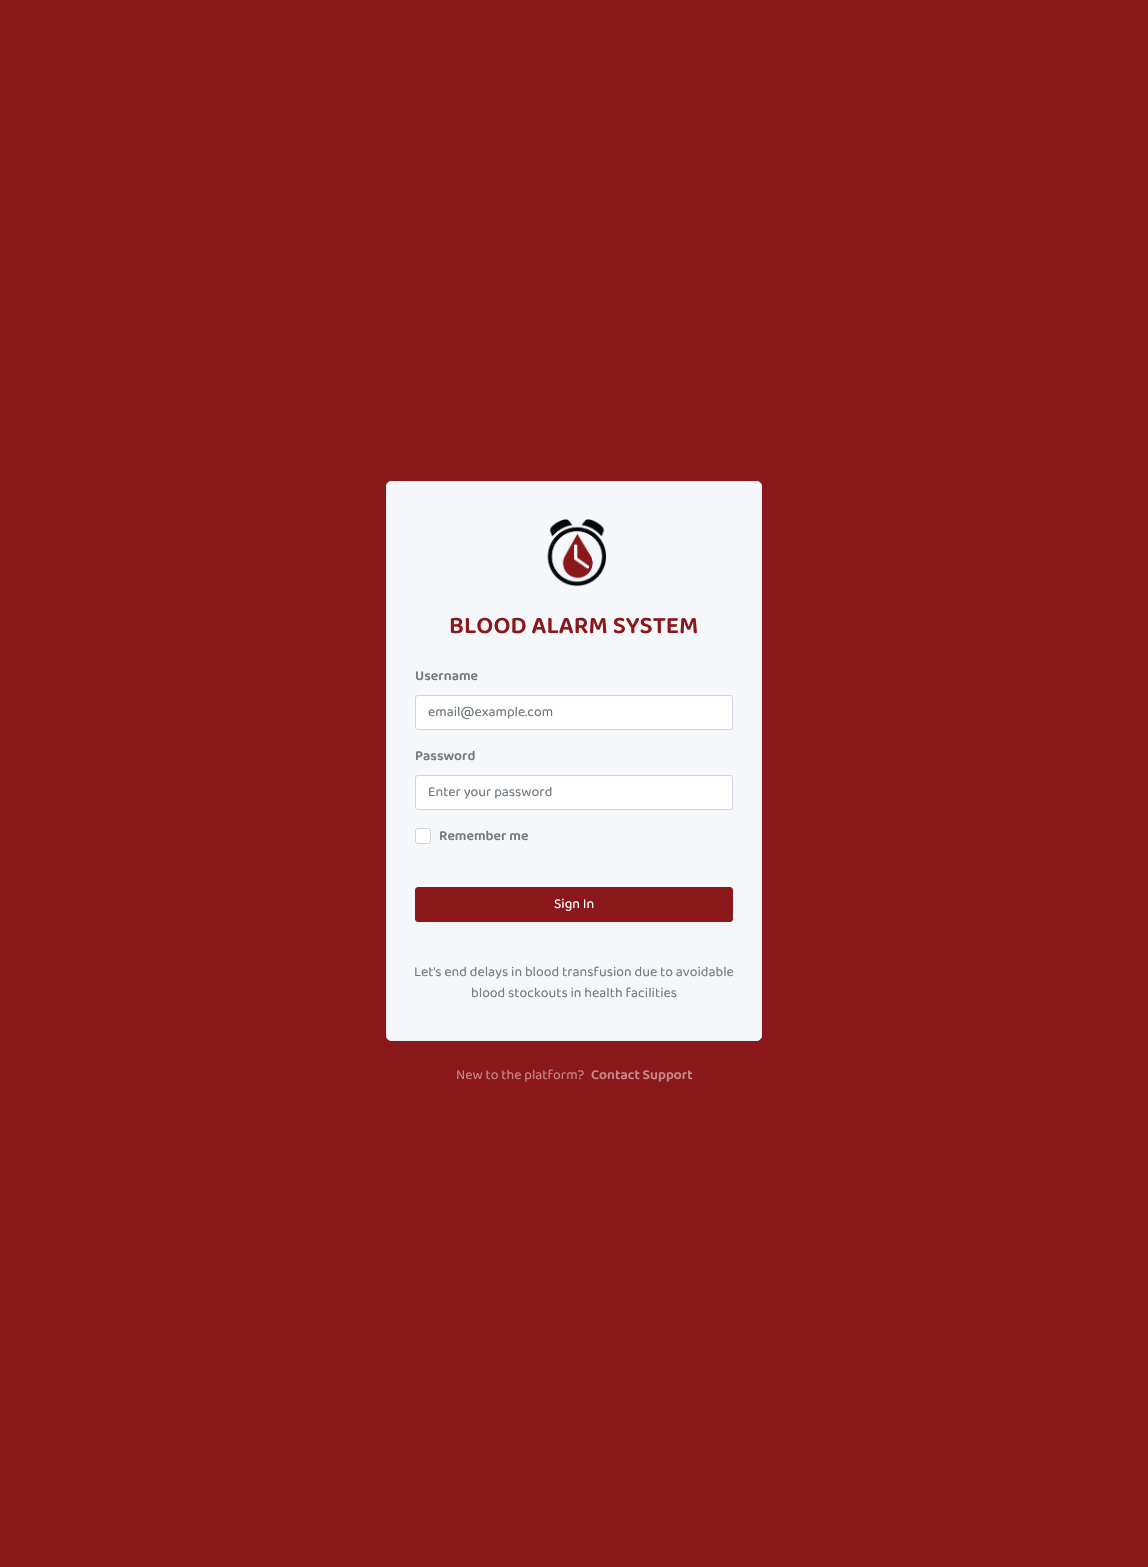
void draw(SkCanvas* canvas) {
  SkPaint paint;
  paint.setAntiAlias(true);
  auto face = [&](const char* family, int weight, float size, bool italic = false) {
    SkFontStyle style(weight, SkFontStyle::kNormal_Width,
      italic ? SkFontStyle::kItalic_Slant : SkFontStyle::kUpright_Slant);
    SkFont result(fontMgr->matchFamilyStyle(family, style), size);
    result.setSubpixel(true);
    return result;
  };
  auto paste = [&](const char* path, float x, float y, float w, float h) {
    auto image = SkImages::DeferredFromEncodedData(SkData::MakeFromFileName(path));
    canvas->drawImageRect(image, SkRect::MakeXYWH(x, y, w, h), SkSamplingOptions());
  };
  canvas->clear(0xff8a171a);
  paint.setColor(0xfff5f7fa);
  canvas->drawRoundRect(SkRect::MakeXYWH(386.5f, 481.5f, 375, 559), 4.5f, 4.5f, paint);
  paint.setStroke(true);
  paint.setStrokeWidth(1);
  paint.setColor(0xffe9edf3);
  canvas->drawRoundRect(SkRect::MakeXYWH(386.5f, 481.5f, 375, 559), 4.5f, 4.5f, paint);
  paste("img/1.png", 547, 519, 60, 68);
  paint.setStroke(false);
  paint.setColor(0xffffffff);
  canvas->drawRoundRect(SkRect::MakeXYWH(415.5f, 695.5f, 317, 34), 2.5f, 2.5f, paint);
  paint.setStroke(true);
  paint.setColor(0xffced4da);
  canvas->drawRoundRect(SkRect::MakeXYWH(415.5f, 695.5f, 317, 34), 2.5f, 2.5f, paint);
  paint.setStroke(false);
  paint.setColor(0xffffffff);
  canvas->drawRoundRect(SkRect::MakeXYWH(415.5f, 775.5f, 317, 34), 2.5f, 2.5f, paint);
  paint.setStroke(true);
  paint.setColor(0xffced4da);
  canvas->drawRoundRect(SkRect::MakeXYWH(415.5f, 775.5f, 317, 34), 2.5f, 2.5f, paint);
  paint.setStroke(false);
  paint.setColor(0xffffffff);
  canvas->drawRoundRect(SkRect::MakeXYWH(415.5f, 828.5f, 15, 15), 2.5f, 2.5f, paint);
  paint.setStroke(true);
  paint.setColor(0xffced4da);
  canvas->drawRoundRect(SkRect::MakeXYWH(415.5f, 828.5f, 15, 15), 2.5f, 2.5f, paint);
  paint.setStroke(false);
  paint.setColor(0xff8a171a);
  canvas->drawRoundRect(SkRect::MakeXYWH(415.5f, 887.5f, 317, 34), 2.5f, 2.5f, paint);
  paint.setStroke(true);
  canvas->drawRoundRect(SkRect::MakeXYWH(415.5f, 887.5f, 317, 34), 2.5f, 2.5f, paint);
  auto f0 = face("Baloo Paaji 2", 600, 24.5f);
  paint.setStroke(false);
  canvas->drawString("BLOOD ALARM SYSTEM", 449, 633, f0, paint);
  auto f1 = face("Baloo Paaji 2", 600, 14);
  paint.setColor(0xff747a80);
  canvas->drawString("Username", 415, 680, f1, paint);
  auto f2 = face("Baloo Paaji 2", 400, 14);
  paint.setColor(0xff6c757d);
  canvas->drawString("email@example.com", 428, 716, f2, paint);
  paint.setColor(0xff747a80);
  canvas->drawString("Password", 415, 760, f1, paint);
  paint.setColor(0xff6c757d);
  canvas->drawString("Enter your password", 428, 796, f2, paint);
  paint.setColor(0xff747a80);
  canvas->drawString("Remember me", 439, 840, f1, paint);
  paint.setColor(0xffffffff);
  canvas->drawString("Sign In", 554, 908, f2, paint);
  paint.setColor(0xff747a80);
  canvas->drawString("Let’s end delays in blood transfusion due to avoidable", 414, 976, f2, paint);
  canvas->drawString("blood stockouts in health facilities", 471, 997, f2, paint);
  paint.setColor(0xffc58b8d);
  canvas->drawString("New to the platform?", 456, 1079, f2, paint);
  canvas->drawString("Contact Support", 591, 1079, f1, paint);
}
